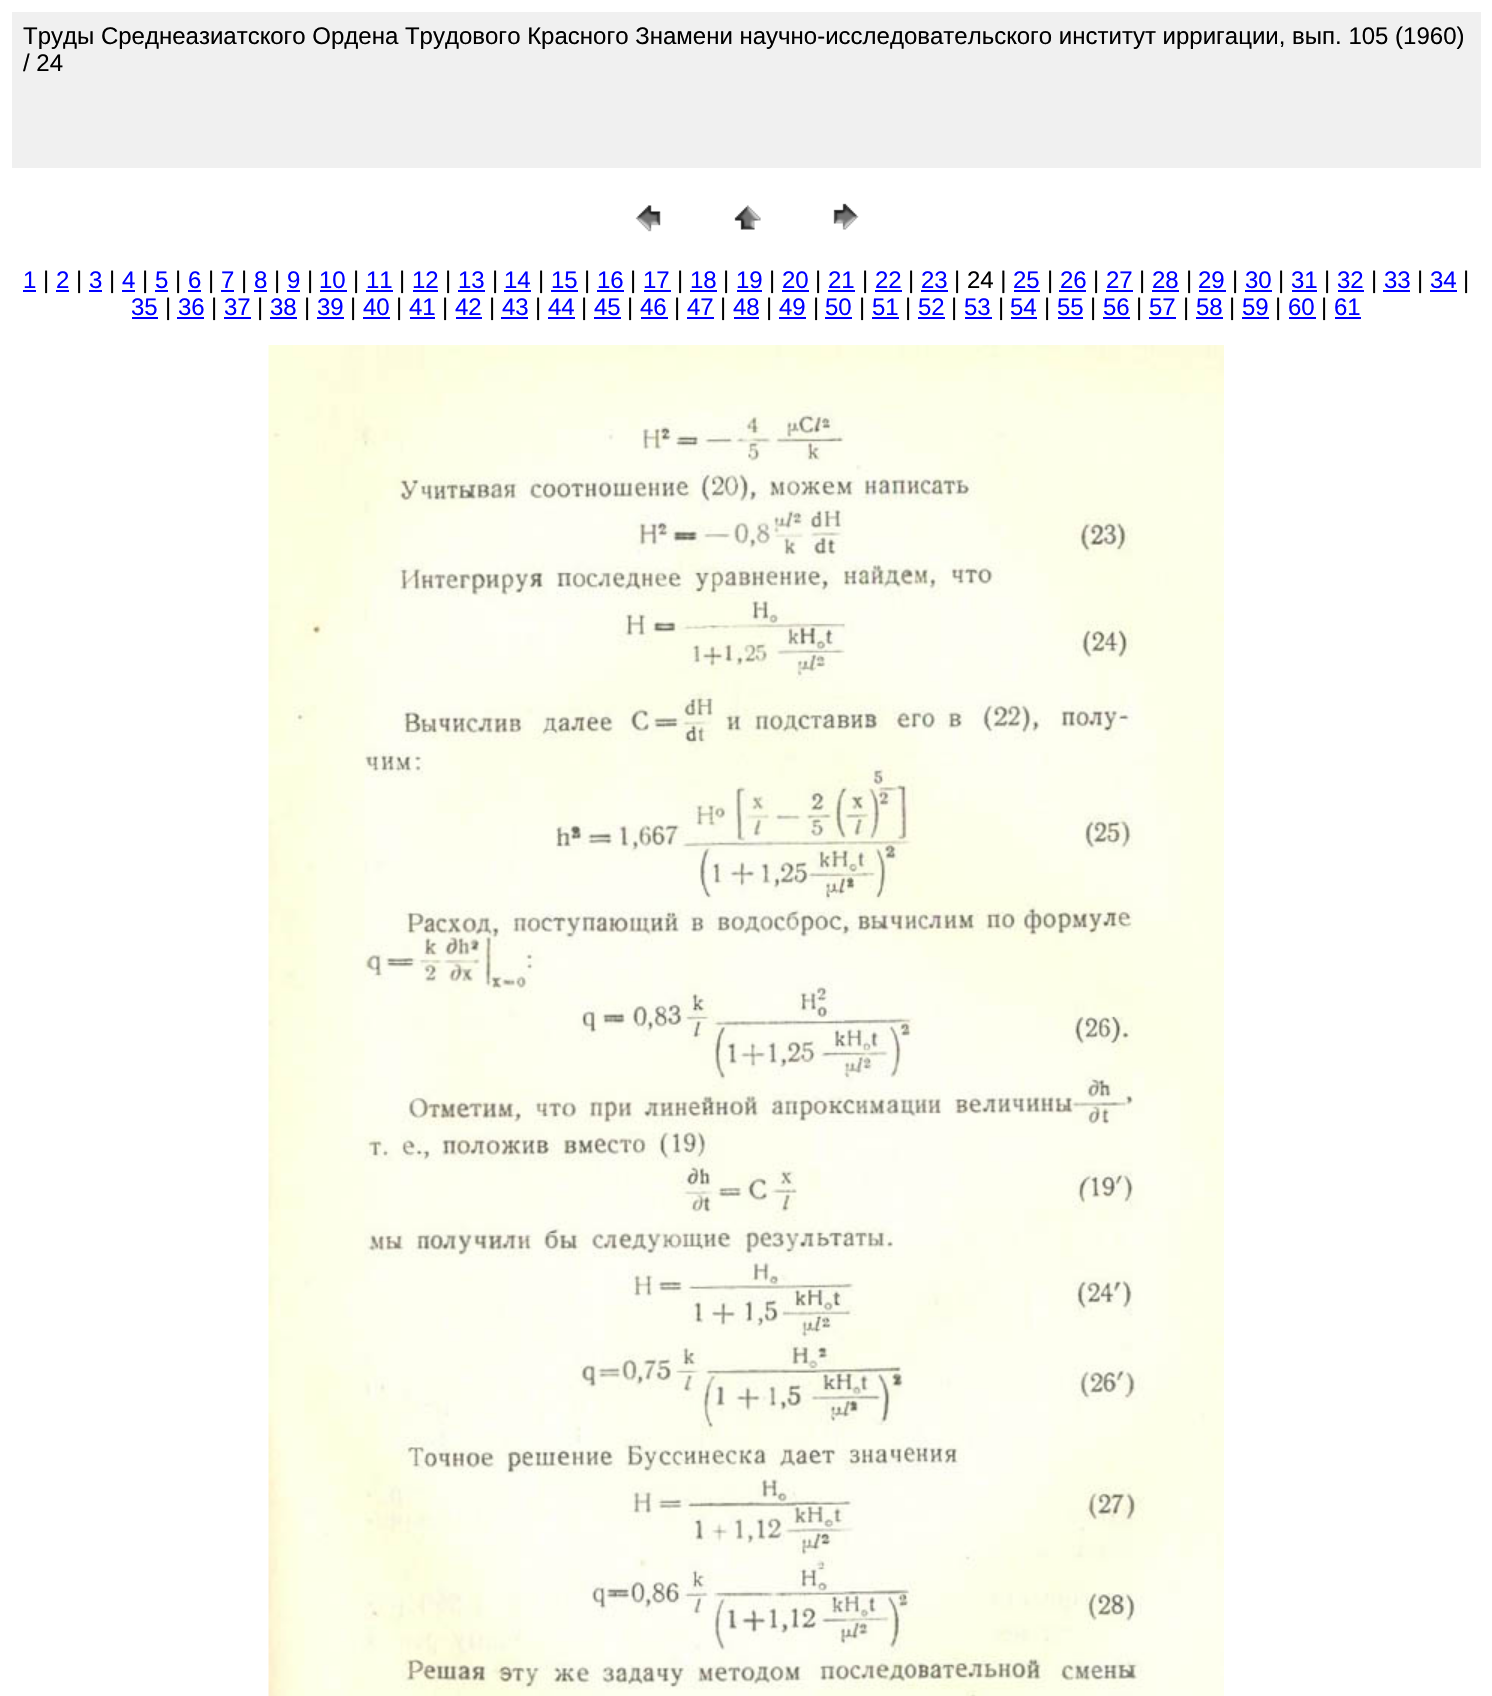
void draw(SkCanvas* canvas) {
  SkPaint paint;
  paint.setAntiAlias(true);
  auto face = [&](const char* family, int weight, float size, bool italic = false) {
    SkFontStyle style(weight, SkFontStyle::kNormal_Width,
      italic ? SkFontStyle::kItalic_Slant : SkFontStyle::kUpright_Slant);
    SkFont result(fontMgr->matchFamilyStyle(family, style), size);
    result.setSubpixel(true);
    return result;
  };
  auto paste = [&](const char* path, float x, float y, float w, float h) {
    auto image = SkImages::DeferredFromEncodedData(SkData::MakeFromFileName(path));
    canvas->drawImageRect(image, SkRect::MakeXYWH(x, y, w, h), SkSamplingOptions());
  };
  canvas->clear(0xffffffff);
  paint.setColor(0xfff0f0f0);
  canvas->drawRect(SkRect::MakeXYWH(12, 12, 1469, 156), paint);
  paste("img/1.png", 635, 205, 26, 27);
  paste("img/2.png", 734, 205, 27, 25);
  paste("img/3.png", 833, 203, 26, 27);
  {
    const struct { float x, y, w, h; SkColor color; } items[] = {
      {23, 290, 13, 2, 0xff0000ff},
      {56, 290, 13, 2, 0xff0000ff},
      {89, 290, 13, 2, 0xff0000ff},
      {122, 290, 13, 2, 0xff0000ff},
      {155, 290, 13, 2, 0xff0000ff},
      {188, 290, 13, 2, 0xff0000ff},
      {221, 290, 13, 2, 0xff0000ff},
      {254, 290, 13, 2, 0xff0000ff},
      {287, 290, 13, 2, 0xff0000ff},
      {320, 290, 27, 2, 0xff0000ff},
      {366, 290, 27, 2, 0xff0000ff},
      {413, 290, 25, 2, 0xff0000ff},
      {458, 290, 27, 2, 0xff0000ff},
      {504, 290, 27, 2, 0xff0000ff},
      {551, 290, 27, 2, 0xff0000ff},
      {597, 290, 27, 2, 0xff0000ff},
      {644, 290, 27, 2, 0xff0000ff},
      {690, 290, 27, 2, 0xff0000ff},
      {737, 290, 25, 2, 0xff0000ff},
      {782, 290, 27, 2, 0xff0000ff},
      {828, 290, 27, 2, 0xff0000ff},
      {875, 290, 27, 2, 0xff0000ff},
      {921, 290, 27, 2, 0xff0000ff},
      {1014, 290, 26, 2, 0xff0000ff},
      {1059, 290, 27, 2, 0xff0000ff},
      {1106, 290, 27, 2, 0xff0000ff},
      {1152, 290, 27, 2, 0xff0000ff},
      {1199, 290, 27, 2, 0xff0000ff},
      {1245, 290, 27, 2, 0xff0000ff},
      {1292, 290, 25, 2, 0xff0000ff},
      {1338, 290, 26, 2, 0xff0000ff},
      {1383, 290, 27, 2, 0xff0000ff},
      {1430, 290, 27, 2, 0xff0000ff},
      {132, 317, 26, 2, 0xff0000ff},
      {177, 317, 27, 2, 0xff0000ff},
      {224, 317, 27, 2, 0xff0000ff},
      {270, 317, 27, 2, 0xff0000ff},
      {317, 317, 27, 2, 0xff0000ff},
      {363, 317, 27, 2, 0xff0000ff},
      {410, 317, 25, 2, 0xff0000ff},
      {456, 317, 26, 2, 0xff0000ff},
      {501, 317, 27, 2, 0xff0000ff},
      {548, 317, 27, 2, 0xff0000ff},
      {594, 317, 27, 2, 0xff0000ff},
      {641, 317, 27, 2, 0xff0000ff},
      {687, 317, 27, 2, 0xff0000ff},
      {734, 317, 25, 2, 0xff0000ff},
      {779, 317, 27, 2, 0xff0000ff},
      {825, 317, 27, 2, 0xff0000ff},
      {872, 317, 27, 2, 0xff0000ff},
      {918, 317, 27, 2, 0xff0000ff},
      {965, 317, 27, 2, 0xff0000ff},
      {1011, 317, 26, 2, 0xff0000ff},
      {1058, 317, 25, 2, 0xff0000ff},
      {1103, 317, 27, 2, 0xff0000ff},
      {1149, 317, 27, 2, 0xff0000ff},
      {1196, 317, 27, 2, 0xff0000ff},
      {1242, 317, 27, 2, 0xff0000ff},
      {1289, 317, 27, 2, 0xff0000ff},
      {1335, 317, 26, 2, 0xff0000ff},
    };
    for (auto [x, y, w, h, color] : items) {
      paint.setColor(color);
      canvas->drawRect(SkRect::MakeXYWH(x, y, w, h), paint);
    }
  }
  paste("img/4.png", 268, 345, 956, 1351);
  auto f0 = face("Liberation Sans", 400, 24);
  paint.setColor(0xff000000);
  canvas->drawString("Труды Среднеазиатского Ордена Трудового Красного Знамени научно-исследовательского институт ирригации, вып. 105 (1960)", 23, 44, f0, paint);
  canvas->drawString("/ 24", 23, 71, f0, paint);
  paint.setColor(0xff0000ff);
  canvas->drawString("1", 23, 288, f0, paint);
  paint.setColor(0xff000000);
  canvas->drawString("|", 43, 288, f0, paint);
  paint.setColor(0xff0000ff);
  canvas->drawString("2", 56, 288, f0, paint);
  paint.setColor(0xff000000);
  canvas->drawString("|", 76, 288, f0, paint);
  paint.setColor(0xff0000ff);
  canvas->drawString("3", 89, 288, f0, paint);
  paint.setColor(0xff000000);
  canvas->drawString("|", 109, 288, f0, paint);
  paint.setColor(0xff0000ff);
  canvas->drawString("4", 122, 288, f0, paint);
  paint.setColor(0xff000000);
  canvas->drawString("|", 142, 288, f0, paint);
  paint.setColor(0xff0000ff);
  canvas->drawString("5", 155, 288, f0, paint);
  paint.setColor(0xff000000);
  canvas->drawString("|", 175, 288, f0, paint);
  paint.setColor(0xff0000ff);
  canvas->drawString("6", 188, 288, f0, paint);
  paint.setColor(0xff000000);
  canvas->drawString("|", 208, 288, f0, paint);
  paint.setColor(0xff0000ff);
  canvas->drawString("7", 221, 288, f0, paint);
  paint.setColor(0xff000000);
  canvas->drawString("|", 241, 288, f0, paint);
  paint.setColor(0xff0000ff);
  canvas->drawString("8", 254, 288, f0, paint);
  paint.setColor(0xff000000);
  canvas->drawString("|", 274, 288, f0, paint);
  paint.setColor(0xff0000ff);
  canvas->drawString("9", 287, 288, f0, paint);
  paint.setColor(0xff000000);
  canvas->drawString("|", 307, 288, f0, paint);
  paint.setColor(0xff0000ff);
  canvas->drawString("10", 319, 288, f0, paint);
  paint.setColor(0xff000000);
  canvas->drawString("|", 353, 288, f0, paint);
  paint.setColor(0xff0000ff);
  canvas->drawString("11", 366, 288, f0, paint);
  paint.setColor(0xff000000);
  canvas->drawString("|", 399, 288, f0, paint);
  paint.setColor(0xff0000ff);
  canvas->drawString("12", 412, 288, f0, paint);
  paint.setColor(0xff000000);
  canvas->drawString("|", 445, 288, f0, paint);
  paint.setColor(0xff0000ff);
  canvas->drawString("13", 458, 288, f0, paint);
  paint.setColor(0xff000000);
  canvas->drawString("|", 492, 288, f0, paint);
  paint.setColor(0xff0000ff);
  canvas->drawString("14", 504, 288, f0, paint);
  paint.setColor(0xff000000);
  canvas->drawString("|", 538, 288, f0, paint);
  paint.setColor(0xff0000ff);
  canvas->drawString("15", 551, 288, f0, paint);
  paint.setColor(0xff000000);
  canvas->drawString("|", 584, 288, f0, paint);
  paint.setColor(0xff0000ff);
  canvas->drawString("16", 597, 288, f0, paint);
  paint.setColor(0xff000000);
  canvas->drawString("|", 630, 288, f0, paint);
  paint.setColor(0xff0000ff);
  canvas->drawString("17", 643, 288, f0, paint);
  paint.setColor(0xff000000);
  canvas->drawString("|", 677, 288, f0, paint);
  paint.setColor(0xff0000ff);
  canvas->drawString("18", 690, 288, f0, paint);
  paint.setColor(0xff000000);
  canvas->drawString("|", 723, 288, f0, paint);
  paint.setColor(0xff0000ff);
  canvas->drawString("19", 736, 288, f0, paint);
  paint.setColor(0xff000000);
  canvas->drawString("|", 769, 288, f0, paint);
  paint.setColor(0xff0000ff);
  canvas->drawString("20", 782, 288, f0, paint);
  paint.setColor(0xff000000);
  canvas->drawString("|", 815, 288, f0, paint);
  paint.setColor(0xff0000ff);
  canvas->drawString("21", 828, 288, f0, paint);
  paint.setColor(0xff000000);
  canvas->drawString("|", 862, 288, f0, paint);
  paint.setColor(0xff0000ff);
  canvas->drawString("22", 875, 288, f0, paint);
  paint.setColor(0xff000000);
  canvas->drawString("|", 908, 288, f0, paint);
  paint.setColor(0xff0000ff);
  canvas->drawString("23", 921, 288, f0, paint);
  paint.setColor(0xff000000);
  canvas->drawString("| 24 |", 954, 288, f0, paint);
  paint.setColor(0xff0000ff);
  canvas->drawString("25", 1013, 288, f0, paint);
  paint.setColor(0xff000000);
  canvas->drawString("|", 1047, 288, f0, paint);
  paint.setColor(0xff0000ff);
  canvas->drawString("26", 1060, 288, f0, paint);
  paint.setColor(0xff000000);
  canvas->drawString("|", 1093, 288, f0, paint);
  paint.setColor(0xff0000ff);
  canvas->drawString("27", 1106, 288, f0, paint);
  paint.setColor(0xff000000);
  canvas->drawString("|", 1139, 288, f0, paint);
  paint.setColor(0xff0000ff);
  canvas->drawString("28", 1152, 288, f0, paint);
  paint.setColor(0xff000000);
  canvas->drawString("|", 1186, 288, f0, paint);
  paint.setColor(0xff0000ff);
  canvas->drawString("29", 1198, 288, f0, paint);
  paint.setColor(0xff000000);
  canvas->drawString("|", 1232, 288, f0, paint);
  paint.setColor(0xff0000ff);
  canvas->drawString("30", 1245, 288, f0, paint);
  paint.setColor(0xff000000);
  canvas->drawString("|", 1278, 288, f0, paint);
  paint.setColor(0xff0000ff);
  canvas->drawString("31", 1291, 288, f0, paint);
  paint.setColor(0xff000000);
  canvas->drawString("|", 1324, 288, f0, paint);
  paint.setColor(0xff0000ff);
  canvas->drawString("32", 1337, 288, f0, paint);
  paint.setColor(0xff000000);
  canvas->drawString("|", 1371, 288, f0, paint);
  paint.setColor(0xff0000ff);
  canvas->drawString("33", 1384, 288, f0, paint);
  paint.setColor(0xff000000);
  canvas->drawString("|", 1417, 288, f0, paint);
  paint.setColor(0xff0000ff);
  canvas->drawString("34", 1430, 288, f0, paint);
  paint.setColor(0xff000000);
  canvas->drawString("|", 1463, 288, f0, paint);
  paint.setColor(0xff0000ff);
  canvas->drawString("35", 131, 315, f0, paint);
  paint.setColor(0xff000000);
  canvas->drawString("|", 165, 315, f0, paint);
  paint.setColor(0xff0000ff);
  canvas->drawString("36", 178, 315, f0, paint);
  paint.setColor(0xff000000);
  canvas->drawString("|", 211, 315, f0, paint);
  paint.setColor(0xff0000ff);
  canvas->drawString("37", 224, 315, f0, paint);
  paint.setColor(0xff000000);
  canvas->drawString("|", 257, 315, f0, paint);
  paint.setColor(0xff0000ff);
  canvas->drawString("38", 270, 315, f0, paint);
  paint.setColor(0xff000000);
  canvas->drawString("|", 304, 315, f0, paint);
  paint.setColor(0xff0000ff);
  canvas->drawString("39", 317, 315, f0, paint);
  paint.setColor(0xff000000);
  canvas->drawString("|", 350, 315, f0, paint);
  paint.setColor(0xff0000ff);
  canvas->drawString("40", 363, 315, f0, paint);
  paint.setColor(0xff000000);
  canvas->drawString("|", 396, 315, f0, paint);
  paint.setColor(0xff0000ff);
  canvas->drawString("41", 409, 315, f0, paint);
  paint.setColor(0xff000000);
  canvas->drawString("|", 442, 315, f0, paint);
  paint.setColor(0xff0000ff);
  canvas->drawString("42", 455, 315, f0, paint);
  paint.setColor(0xff000000);
  canvas->drawString("|", 489, 315, f0, paint);
  paint.setColor(0xff0000ff);
  canvas->drawString("43", 502, 315, f0, paint);
  paint.setColor(0xff000000);
  canvas->drawString("|", 535, 315, f0, paint);
  paint.setColor(0xff0000ff);
  canvas->drawString("44", 548, 315, f0, paint);
  paint.setColor(0xff000000);
  canvas->drawString("|", 581, 315, f0, paint);
  paint.setColor(0xff0000ff);
  canvas->drawString("45", 594, 315, f0, paint);
  paint.setColor(0xff000000);
  canvas->drawString("|", 627, 315, f0, paint);
  paint.setColor(0xff0000ff);
  canvas->drawString("46", 640, 315, f0, paint);
  paint.setColor(0xff000000);
  canvas->drawString("|", 674, 315, f0, paint);
  paint.setColor(0xff0000ff);
  canvas->drawString("47", 687, 315, f0, paint);
  paint.setColor(0xff000000);
  canvas->drawString("|", 720, 315, f0, paint);
  paint.setColor(0xff0000ff);
  canvas->drawString("48", 733, 315, f0, paint);
  paint.setColor(0xff000000);
  canvas->drawString("|", 766, 315, f0, paint);
  paint.setColor(0xff0000ff);
  canvas->drawString("49", 779, 315, f0, paint);
  paint.setColor(0xff000000);
  canvas->drawString("|", 813, 315, f0, paint);
  paint.setColor(0xff0000ff);
  canvas->drawString("50", 825, 315, f0, paint);
  paint.setColor(0xff000000);
  canvas->drawString("|", 859, 315, f0, paint);
  paint.setColor(0xff0000ff);
  canvas->drawString("51", 872, 315, f0, paint);
  paint.setColor(0xff000000);
  canvas->drawString("|", 905, 315, f0, paint);
  paint.setColor(0xff0000ff);
  canvas->drawString("52", 918, 315, f0, paint);
  paint.setColor(0xff000000);
  canvas->drawString("|", 951, 315, f0, paint);
  paint.setColor(0xff0000ff);
  canvas->drawString("53", 964, 315, f0, paint);
  paint.setColor(0xff000000);
  canvas->drawString("|", 998, 315, f0, paint);
  paint.setColor(0xff0000ff);
  canvas->drawString("54", 1010, 315, f0, paint);
  paint.setColor(0xff000000);
  canvas->drawString("|", 1044, 315, f0, paint);
  paint.setColor(0xff0000ff);
  canvas->drawString("55", 1057, 315, f0, paint);
  paint.setColor(0xff000000);
  canvas->drawString("|", 1090, 315, f0, paint);
  paint.setColor(0xff0000ff);
  canvas->drawString("56", 1103, 315, f0, paint);
  paint.setColor(0xff000000);
  canvas->drawString("|", 1136, 315, f0, paint);
  paint.setColor(0xff0000ff);
  canvas->drawString("57", 1149, 315, f0, paint);
  paint.setColor(0xff000000);
  canvas->drawString("|", 1183, 315, f0, paint);
  paint.setColor(0xff0000ff);
  canvas->drawString("58", 1196, 315, f0, paint);
  paint.setColor(0xff000000);
  canvas->drawString("|", 1229, 315, f0, paint);
  paint.setColor(0xff0000ff);
  canvas->drawString("59", 1242, 315, f0, paint);
  paint.setColor(0xff000000);
  canvas->drawString("|", 1275, 315, f0, paint);
  paint.setColor(0xff0000ff);
  canvas->drawString("60", 1288, 315, f0, paint);
  paint.setColor(0xff000000);
  canvas->drawString("|", 1321, 315, f0, paint);
  paint.setColor(0xff0000ff);
  canvas->drawString("61", 1334, 315, f0, paint);
}
